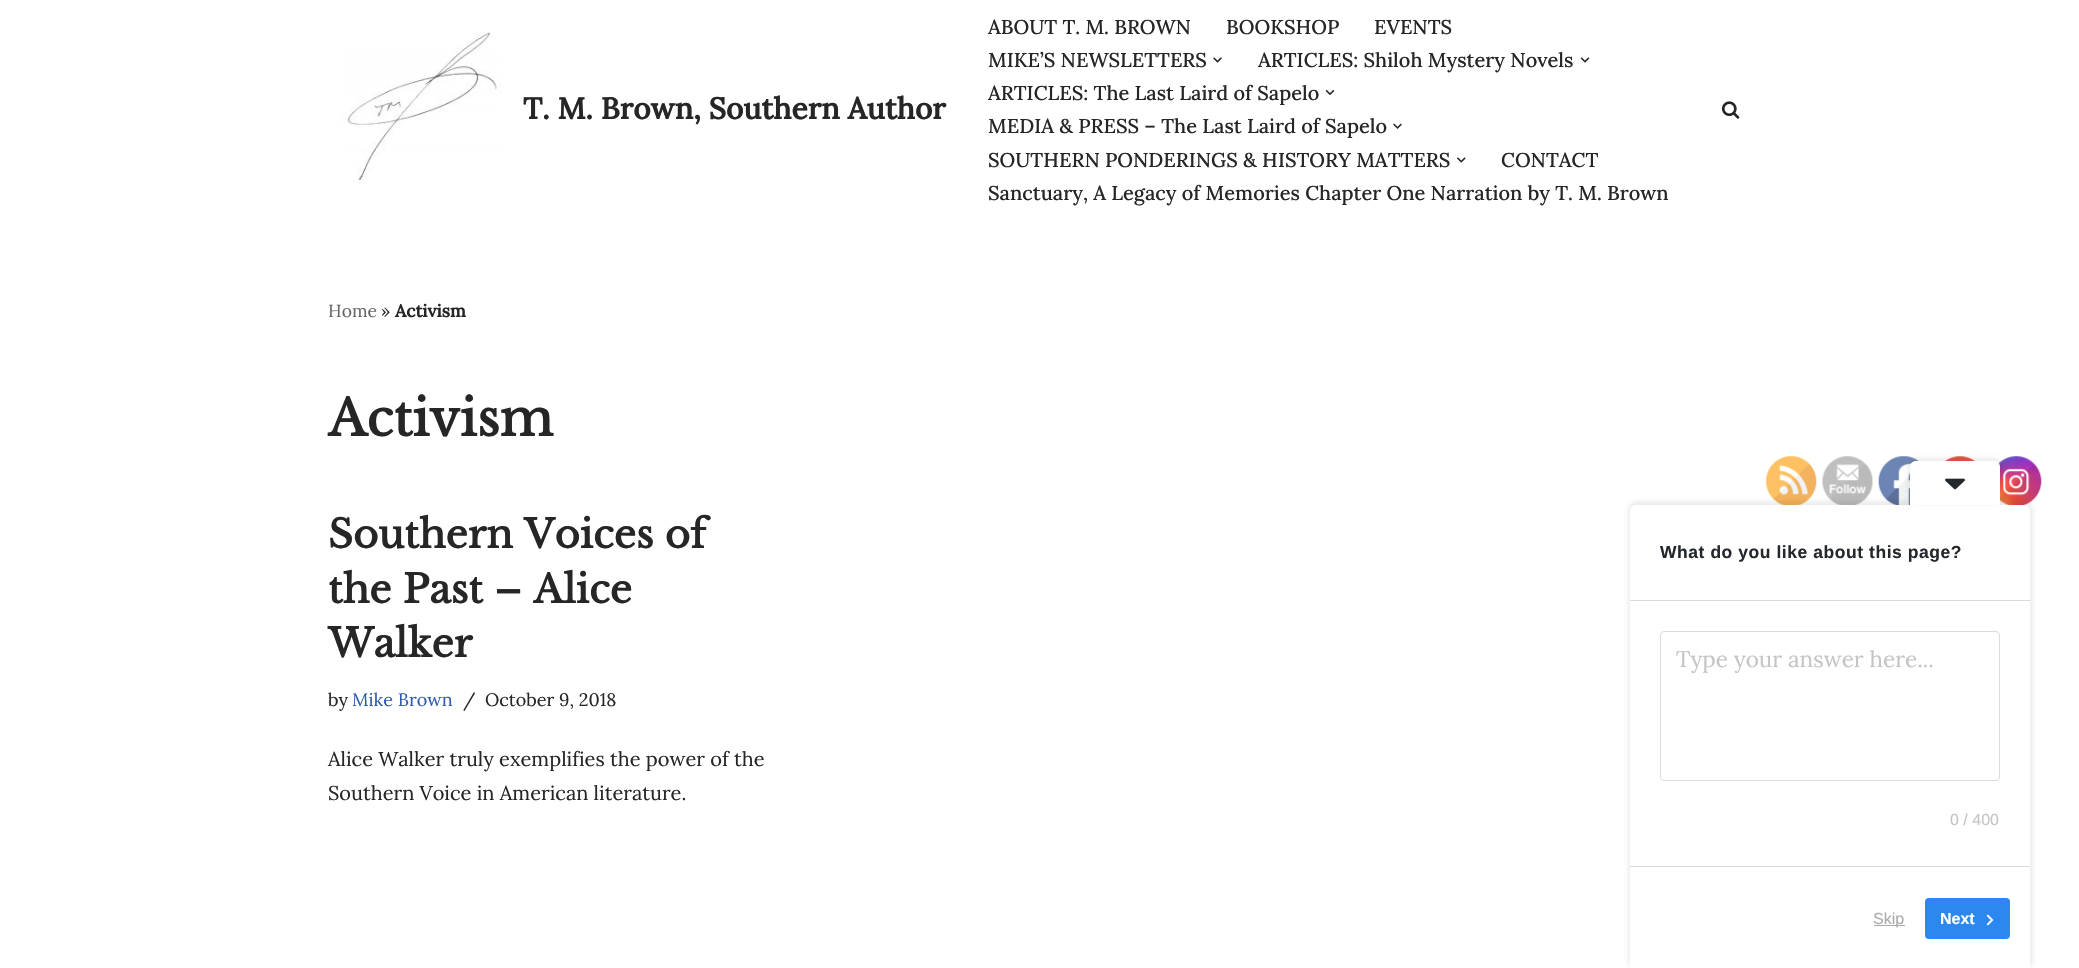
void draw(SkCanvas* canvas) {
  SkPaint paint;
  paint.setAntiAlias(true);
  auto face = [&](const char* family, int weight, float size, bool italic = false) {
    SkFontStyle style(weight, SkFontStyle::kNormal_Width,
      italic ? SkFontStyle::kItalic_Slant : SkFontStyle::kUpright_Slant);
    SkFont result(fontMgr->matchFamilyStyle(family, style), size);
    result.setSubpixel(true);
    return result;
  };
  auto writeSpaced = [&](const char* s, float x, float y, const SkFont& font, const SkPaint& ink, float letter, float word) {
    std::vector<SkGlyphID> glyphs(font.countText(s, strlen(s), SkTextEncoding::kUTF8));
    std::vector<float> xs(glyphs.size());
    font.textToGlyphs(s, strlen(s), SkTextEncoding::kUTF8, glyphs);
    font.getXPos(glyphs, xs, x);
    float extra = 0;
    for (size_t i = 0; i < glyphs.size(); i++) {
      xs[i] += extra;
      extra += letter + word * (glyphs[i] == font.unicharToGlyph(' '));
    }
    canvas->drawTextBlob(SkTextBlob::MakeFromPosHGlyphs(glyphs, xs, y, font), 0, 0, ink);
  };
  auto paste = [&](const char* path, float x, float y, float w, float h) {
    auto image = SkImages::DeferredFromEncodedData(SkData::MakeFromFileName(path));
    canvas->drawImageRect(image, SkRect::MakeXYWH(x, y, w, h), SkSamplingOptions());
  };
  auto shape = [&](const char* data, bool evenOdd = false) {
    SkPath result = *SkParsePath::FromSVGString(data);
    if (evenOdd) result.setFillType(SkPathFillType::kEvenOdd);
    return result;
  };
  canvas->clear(0xffffffff);
  paste("img/1.png", 342, 32, 160, 153);
  paste("img/2.png", 1213, 57, 9, 6);
  paste("img/3.png", 1580, 57, 10, 6);
  paste("img/4.png", 1325, 90, 10, 5);
  paste("img/5.png", 1393, 123, 9, 6);
  paste("img/6.png", 1457, 157, 9, 6);
  paste("img/7.png", 1721, 101, 19, 18);
  paste("img/8.png", 1766, 456, 51, 49);
  paste("img/9.png", 1822, 456, 51, 49);
  paste("img/10.png", 1878, 456, 41, 49);
  paste("img/11.png", 1945, 456, 30, 5);
  paste("img/12.png", 1998, 456, 44, 50);
  paint.setColor(0x12000000);
  paint.setMaskFilter(SkMaskFilter::MakeBlur(kNormal_SkBlurStyle, 2));
  canvas->drawRoundRect(SkRect::MakeXYWH(1628, 501, 405, 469), 9, 9, paint);
  paint.setMaskFilter(nullptr);
  paint.setColor(0xffffffff);
  canvas->drawPath(shape("M1636 505H2024C2027.5 505 2030 507.5 2030 511V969H1630V511C1630 507.5 1632.5 505 1636 505Z"), paint);
  canvas->save();
  canvas->clipPath(shape("M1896.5 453H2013.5L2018 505.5H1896.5Z"), true);
  paint.setColor(0x12000000);
  paint.setMaskFilter(SkMaskFilter::MakeBlur(kNormal_SkBlurStyle, 2));
  canvas->drawRoundRect(SkRect::MakeXYWH(1908, 458, 95, 48), 9, 9, paint);
  paint.setMaskFilter(nullptr);
  canvas->restore();
  paint.setColor(0xffffffff);
  canvas->drawPath(shape("M1916 461H1994C1997.5 461 2000 463.5 2000 467V505H1910V467C1910 463.5 1912.5 461 1916 461Z"), paint);
  paste("img/13.png", 1945, 478, 20, 12);
  paint.setColor(0xffd9d9d9);
  canvas->drawRect(SkRect::MakeXYWH(1630, 600, 400, 1), paint);
  canvas->drawRect(SkRect::MakeXYWH(1630, 866, 400, 1), paint);
  paint.setStroke(true);
  paint.setStrokeWidth(1);
  paint.setColor(0xffdadada);
  canvas->drawRoundRect(SkRect::MakeXYWH(1660.5f, 631.5f, 339, 149), 3.5f, 3.5f, paint);
  paint.setStroke(false);
  paint.setColor(0xffaaaaaa);
  canvas->drawRect(SkRect::MakeXYWH(1874, 925, 31, 1), paint);
  paint.setColor(0xff2d87f1);
  canvas->drawRoundRect(SkRect::MakeXYWH(1925, 898, 85, 41), 4, 4, paint);
  paste("img/14.png", 1986, 914, 8, 12);
  auto f0 = face("Lora", 700, 30);
  paint.setColor(0xff272626);
  canvas->drawString("T. M. Brown, Southern Author", 523, 119, f0, paint);
  auto f1 = face("Lora", 500, 20);
  {
    const struct { const char* s; float x, y; } items[] = {
      {"ABOUT T. M. BROWN", 988, 34},
      {"BOOKSHOP", 1226, 34},
      {"EVENTS", 1374, 34},
      {"MIKE’S NEWSLETTERS", 988, 67},
      {"ARTICLES: Shiloh Mystery Novels", 1258, 67},
      {"ARTICLES: The Last Laird of Sapelo", 988, 100},
      {"MEDIA & PRESS – The Last Laird of Sapelo", 988, 133},
      {"SOUTHERN PONDERINGS & HISTORY MATTERS", 988, 167},
      {"CONTACT", 1501, 167},
      {"Sanctuary, A Legacy of Memories Chapter One Narration by T. M. Brown", 988, 200},
    };
    for (auto [s, x, y] : items) {
      canvas->drawString(s, x, y, f1, paint);
    }
  }
  auto f2 = face("Lora", 400, 17.5f);
  paint.setColor(0xff676767);
  canvas->drawString("Home", 328, 317, f2, paint);
  paint.setColor(0xff272626);
  canvas->drawString("»", 381, 317, f2, paint);
  auto f3 = face("Lora", 700, 17.5f);
  canvas->drawString("Activism", 395, 317, f3, paint);
  auto f4 = face("Libre Baskerville", 700, 50);
  canvas->drawString("Activism", 328, 436, f4, paint);
  auto f5 = face("Libre Baskerville", 700, 38.75f);
  {
    const struct { const char* s; float x, y; } items[] = {
      {"Southern Voices of", 328, 548},
      {"the Past – Alice", 328, 603},
      {"Walker", 328, 657},
    };
    for (auto [s, x, y] : items) {
      canvas->drawString(s, x, y, f5, paint);
    }
  }
  auto f6 = face("Lora", 400, 18);
  canvas->drawString("by", 328, 706, f6, paint);
  paint.setColor(0xff2f5aae);
  canvas->drawString("Mike Brown", 352, 706, f6, paint);
  paint.setColor(0xff272626);
  canvas->drawString("/", 463, 706, f6, paint);
  canvas->drawString("October 9, 2018", 485, 706, f6, paint);
  auto f7 = face("Lora", 400, 20);
  canvas->drawString("Alice Walker truly exemplifies the power of the", 328, 766, f7, paint);
  canvas->drawString("Southern Voice in American literature.", 328, 800, f7, paint);
  auto f8 = face("Liberation Sans", 700, 17.5f);
  paint.setColor(0xff23282d);
  writeSpaced("What do you like about this page?", 1660, 558, f8, paint, 0.55f, 0);
  auto f9 = face("Lora", 400, 22.5f);
  paint.setColor(0xffc4c4c4);
  canvas->drawString("Type your answer here...", 1676, 667, f9, paint);
  auto f10 = face("Liberation Sans", 400, 16);
  canvas->drawString("0 / 400", 1950, 825, f10, paint);
  paint.setColor(0xffaaaaaa);
  canvas->drawString("Skip", 1873, 924, f10, paint);
  auto f11 = face("Liberation Sans", 700, 16);
  paint.setColor(0xffffffff);
  canvas->drawString("Next", 1940, 924, f11, paint);
}
